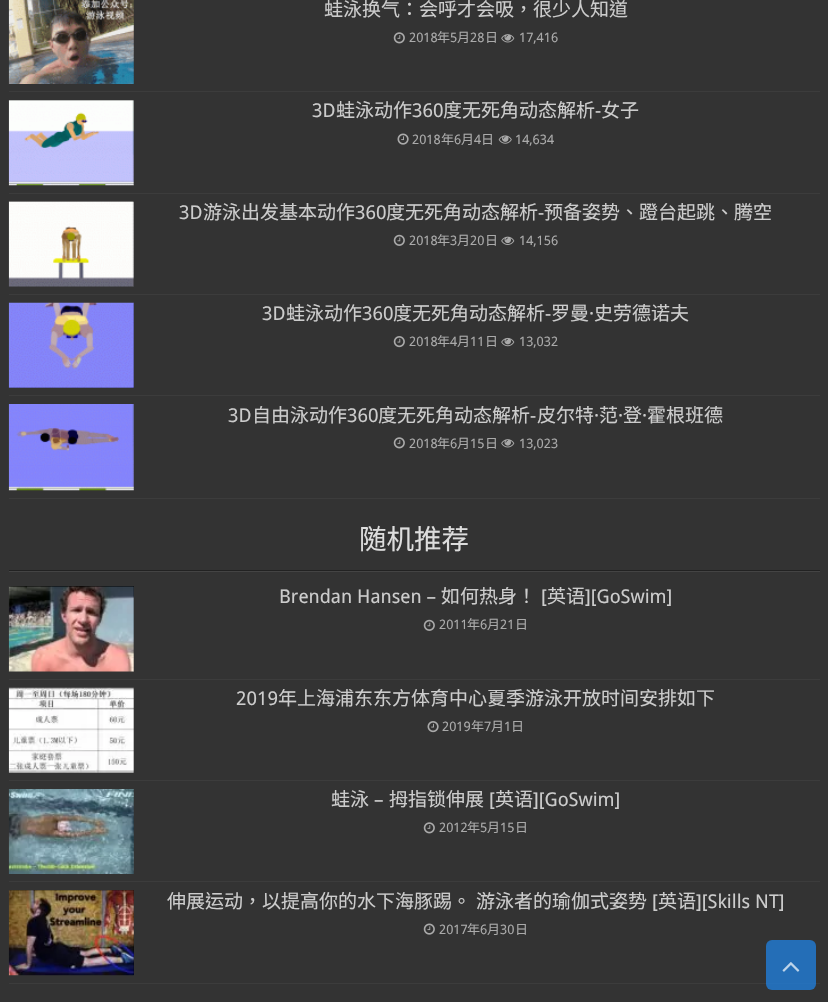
void draw(SkCanvas* canvas) {
  SkPaint paint;
  paint.setAntiAlias(true);
  auto face = [&](const char* family, int weight, float size, bool italic = false) {
    SkFontStyle style(weight, SkFontStyle::kNormal_Width,
      italic ? SkFontStyle::kItalic_Slant : SkFontStyle::kUpright_Slant);
    SkFont result(fontMgr->matchFamilyStyle(family, style), size);
    result.setSubpixel(true);
    return result;
  };
  auto paste = [&](const char* path, float x, float y, float w, float h) {
    auto image = SkImages::DeferredFromEncodedData(SkData::MakeFromFileName(path));
    canvas->drawImageRect(image, SkRect::MakeXYWH(x, y, w, h), SkSamplingOptions());
  };
  canvas->clear(0xff333333);
  paint.setColor(0xff3c3c3c);
  canvas->drawRect(SkRect::MakeXYWH(9, 91, 811, 1), paint);
  paste("img/1.png", 8, 0, 126, 84);
  paste("img/2.png", 393, 32, 12, 12);
  paste("img/3.png", 501, 34, 14, 9);
  canvas->drawRect(SkRect::MakeXYWH(9, 193, 811, 1), paint);
  paint.setColor(0xff000000);
  canvas->drawRect(SkRect::MakeXYWH(9, 100, 125, 85), paint);
  paste("img/4.png", 8, 100, 126, 86);
  paste("img/5.png", 397, 133, 12, 12);
  paste("img/6.png", 498, 135, 14, 9);
  paint.setColor(0xff3c3c3c);
  canvas->drawRect(SkRect::MakeXYWH(9, 294, 811, 1), paint);
  paint.setColor(0xff000000);
  canvas->drawRect(SkRect::MakeXYWH(9, 201, 125, 85), paint);
  paste("img/7.png", 8, 201, 126, 86);
  paste("img/8.png", 393, 234, 12, 12);
  paste("img/9.png", 501, 236, 14, 9);
  paint.setColor(0xff3c3c3c);
  canvas->drawRect(SkRect::MakeXYWH(9, 395, 811, 1), paint);
  paint.setColor(0xff000000);
  canvas->drawRect(SkRect::MakeXYWH(9, 303, 125, 85), paint);
  paste("img/10.png", 8, 302, 126, 86);
  paste("img/11.png", 393, 336, 12, 12);
  paste("img/12.png", 501, 337, 14, 10);
  paint.setColor(0xff3c3c3c);
  canvas->drawRect(SkRect::MakeXYWH(9, 498, 811, 1), paint);
  paste("img/13.png", 8, 404, 126, 87);
  paste("img/2.png", 393, 437, 12, 12);
  paste("img/3.png", 501, 439, 14, 9);
  {
    const struct { float x, y, w, h; SkColor color; } items[] = {
      {9, 570, 811, 1, 0xff222222},
      {9, 571, 811, 1, 0xff444444},
      {9, 679, 811, 1, 0xff3c3c3c},
      {9, 586, 125, 85, 0xff000000},
    };
    for (auto [x, y, w, h, color] : items) {
      paint.setColor(color);
      canvas->drawRect(SkRect::MakeXYWH(x, y, w, h), paint);
    }
  }
  paste("img/14.png", 8, 586, 126, 86);
  paste("img/8.png", 423, 619, 12, 12);
  paint.setColor(0xff3c3c3c);
  canvas->drawRect(SkRect::MakeXYWH(9, 780, 811, 1), paint);
  paint.setColor(0xff000000);
  canvas->drawRect(SkRect::MakeXYWH(9, 688, 125, 85), paint);
  paste("img/15.png", 8, 687, 126, 86);
  paste("img/16.png", 427, 721, 12, 12);
  paint.setColor(0xff3c3c3c);
  canvas->drawRect(SkRect::MakeXYWH(9, 881, 811, 1), paint);
  paste("img/17.png", 8, 789, 126, 85);
  paste("img/2.png", 423, 822, 12, 12);
  canvas->drawRect(SkRect::MakeXYWH(9, 983, 811, 1), paint);
  paint.setColor(0xff000000);
  canvas->drawRect(SkRect::MakeXYWH(9, 890, 125, 85), paint);
  paste("img/18.png", 8, 890, 126, 86);
  paste("img/19.png", 423, 923, 12, 12);
  paint.setColor(0xb31c86ee);
  canvas->drawRoundRect(SkRect::MakeXYWH(766, 940, 50, 50), 6, 6, paint);
  paste("img/20.png", 782, 962, 18, 10);
  auto f0 = face("Noto Sans CJK TC", 400, 19);
  paint.setColor(0xffcccccc);
  canvas->drawString("蛙泳换气：会呼才会吸，很少人知道", 324, 16, f0, paint);
  auto f1 = face("Droid Sans", 400, 13);
  paint.setColor(0xffaaaaaa);
  canvas->drawString("2018", 409, 42, f1, paint);
  auto f2 = face("Noto Sans CJK TC", 400, 13);
  canvas->drawString("年", 437, 42, f2, paint);
  canvas->drawString("5", 450, 42, f1, paint);
  canvas->drawString("月", 457, 42, f2, paint);
  canvas->drawString("28", 470, 42, f1, paint);
  canvas->drawString("日", 485, 42, f2, paint);
  canvas->drawString("17,416", 519, 42, f1, paint);
  auto f3 = face("Droid Sans", 400, 19);
  paint.setColor(0xffcccccc);
  canvas->drawString("3D", 312, 117, f3, paint);
  canvas->drawString("蛙泳动作", 336, 117, f0, paint);
  canvas->drawString("360", 412, 117, f3, paint);
  canvas->drawString("度无死角动态解析", 443, 117, f0, paint);
  canvas->drawString("-", 595, 117, f3, paint);
  canvas->drawString("女子", 601, 117, f0, paint);
  paint.setColor(0xffaaaaaa);
  canvas->drawString("2018", 412, 144, f1, paint);
  canvas->drawString("年", 441, 144, f2, paint);
  canvas->drawString("6", 454, 144, f1, paint);
  canvas->drawString("月", 461, 144, f2, paint);
  canvas->drawString("4", 474, 144, f1, paint);
  canvas->drawString("日", 481, 144, f2, paint);
  canvas->drawString("14,634", 515, 144, f1, paint);
  paint.setColor(0xffcccccc);
  canvas->drawString("3D", 179, 219, f3, paint);
  canvas->drawString("游泳出发基本动作", 203, 219, f0, paint);
  canvas->drawString("360", 355, 219, f3, paint);
  canvas->drawString("度无死角动态解析", 386, 219, f0, paint);
  canvas->drawString("-", 538, 219, f3, paint);
  canvas->drawString("预备姿势、蹬台起跳、腾空", 544, 219, f0, paint);
  paint.setColor(0xffaaaaaa);
  canvas->drawString("2018", 409, 245, f1, paint);
  canvas->drawString("年", 437, 245, f2, paint);
  canvas->drawString("3", 450, 245, f1, paint);
  canvas->drawString("月", 457, 245, f2, paint);
  canvas->drawString("20", 470, 245, f1, paint);
  canvas->drawString("日", 485, 245, f2, paint);
  canvas->drawString("14,156", 519, 245, f1, paint);
  paint.setColor(0xffcccccc);
  canvas->drawString("3D", 262, 320, f3, paint);
  canvas->drawString("蛙泳动作", 286, 320, f0, paint);
  canvas->drawString("360", 362, 320, f3, paint);
  canvas->drawString("度无死角动态解析", 393, 320, f0, paint);
  canvas->drawString("-", 545, 320, f3, paint);
  canvas->drawString("罗曼", 551, 320, f0, paint);
  canvas->drawString("·", 589, 320, f3, paint);
  canvas->drawString("史劳德诺夫", 594, 320, f0, paint);
  paint.setColor(0xffaaaaaa);
  canvas->drawString("2018", 409, 346, f1, paint);
  canvas->drawString("年", 437, 346, f2, paint);
  canvas->drawString("4", 450, 346, f1, paint);
  canvas->drawString("月", 457, 346, f2, paint);
  canvas->drawString("11", 470, 346, f1, paint);
  canvas->drawString("日", 485, 346, f2, paint);
  canvas->drawString("13,032", 519, 346, f1, paint);
  paint.setColor(0xffcccccc);
  canvas->drawString("3D", 228, 422, f3, paint);
  canvas->drawString("自由泳动作", 252, 422, f0, paint);
  canvas->drawString("360", 347, 422, f3, paint);
  canvas->drawString("度无死角动态解析", 378, 422, f0, paint);
  canvas->drawString("-", 530, 422, f3, paint);
  canvas->drawString("皮尔特", 537, 422, f0, paint);
  canvas->drawString("·", 594, 422, f3, paint);
  canvas->drawString("范", 599, 422, f0, paint);
  canvas->drawString("·", 618, 422, f3, paint);
  canvas->drawString("登", 623, 422, f0, paint);
  canvas->drawString("·", 642, 422, f3, paint);
  canvas->drawString("霍根班德", 647, 422, f0, paint);
  paint.setColor(0xffaaaaaa);
  canvas->drawString("2018", 409, 448, f1, paint);
  canvas->drawString("年", 437, 448, f2, paint);
  canvas->drawString("6", 450, 448, f1, paint);
  canvas->drawString("月", 457, 448, f2, paint);
  canvas->drawString("15", 470, 448, f1, paint);
  canvas->drawString("日", 485, 448, f2, paint);
  canvas->drawString("13,023", 519, 448, f1, paint);
  auto f4 = face("Noto Sans CJK TC", 400, 27.5f);
  paint.setColor(0xffdddddd);
  canvas->drawString("随机推荐", 359, 549, f4, paint);
  paint.setColor(0xffcccccc);
  canvas->drawString("Brendan Hansen –", 279, 603, f3, paint);
  canvas->drawString("如何热身！", 441, 603, f0, paint);
  canvas->drawString("[", 541, 603, f3, paint);
  canvas->drawString("英语", 547, 603, f0, paint);
  canvas->drawString("][GoSwim]", 585, 603, f3, paint);
  paint.setColor(0xffaaaaaa);
  canvas->drawString("2011", 439, 629, f1, paint);
  canvas->drawString("年", 467, 629, f2, paint);
  canvas->drawString("6", 480, 629, f1, paint);
  canvas->drawString("月", 487, 629, f2, paint);
  canvas->drawString("21", 500, 629, f1, paint);
  canvas->drawString("日", 515, 629, f2, paint);
  paint.setColor(0xffcccccc);
  canvas->drawString("2019", 236, 705, f3, paint);
  canvas->drawString("年上海浦东东方体育中心夏季游泳开放时间安排如下", 278, 705, f0, paint);
  paint.setColor(0xffaaaaaa);
  canvas->drawString("2019", 442, 731, f1, paint);
  canvas->drawString("年", 471, 731, f2, paint);
  canvas->drawString("7", 484, 731, f1, paint);
  canvas->drawString("月", 491, 731, f2, paint);
  canvas->drawString("1", 504, 731, f1, paint);
  canvas->drawString("日", 511, 731, f2, paint);
  paint.setColor(0xffcccccc);
  canvas->drawString("蛙泳", 331, 806, f0, paint);
  canvas->drawString("–", 374, 806, f3, paint);
  canvas->drawString("拇指锁伸展", 389, 806, f0, paint);
  canvas->drawString("[", 489, 806, f3, paint);
  canvas->drawString("英语", 495, 806, f0, paint);
  canvas->drawString("][GoSwim]", 533, 806, f3, paint);
  paint.setColor(0xffaaaaaa);
  canvas->drawString("2012", 439, 832, f1, paint);
  canvas->drawString("年", 467, 832, f2, paint);
  canvas->drawString("5", 480, 832, f1, paint);
  canvas->drawString("月", 487, 832, f2, paint);
  canvas->drawString("15", 500, 832, f1, paint);
  canvas->drawString("日", 515, 832, f2, paint);
  paint.setColor(0xffcccccc);
  canvas->drawString("伸展运动，以提高你的水下海豚踢。", 167, 908, f0, paint);
  canvas->drawString("游泳者的瑜伽式姿势", 476, 908, f0, paint);
  canvas->drawString("[", 652, 908, f3, paint);
  canvas->drawString("英语", 658, 908, f0, paint);
  canvas->drawString("][Skills NT]", 696, 908, f3, paint);
  paint.setColor(0xffaaaaaa);
  canvas->drawString("2017", 439, 934, f1, paint);
  canvas->drawString("年", 467, 934, f2, paint);
  canvas->drawString("6", 480, 934, f1, paint);
  canvas->drawString("月", 487, 934, f2, paint);
  canvas->drawString("30", 500, 934, f1, paint);
  canvas->drawString("日", 515, 934, f2, paint);
}
